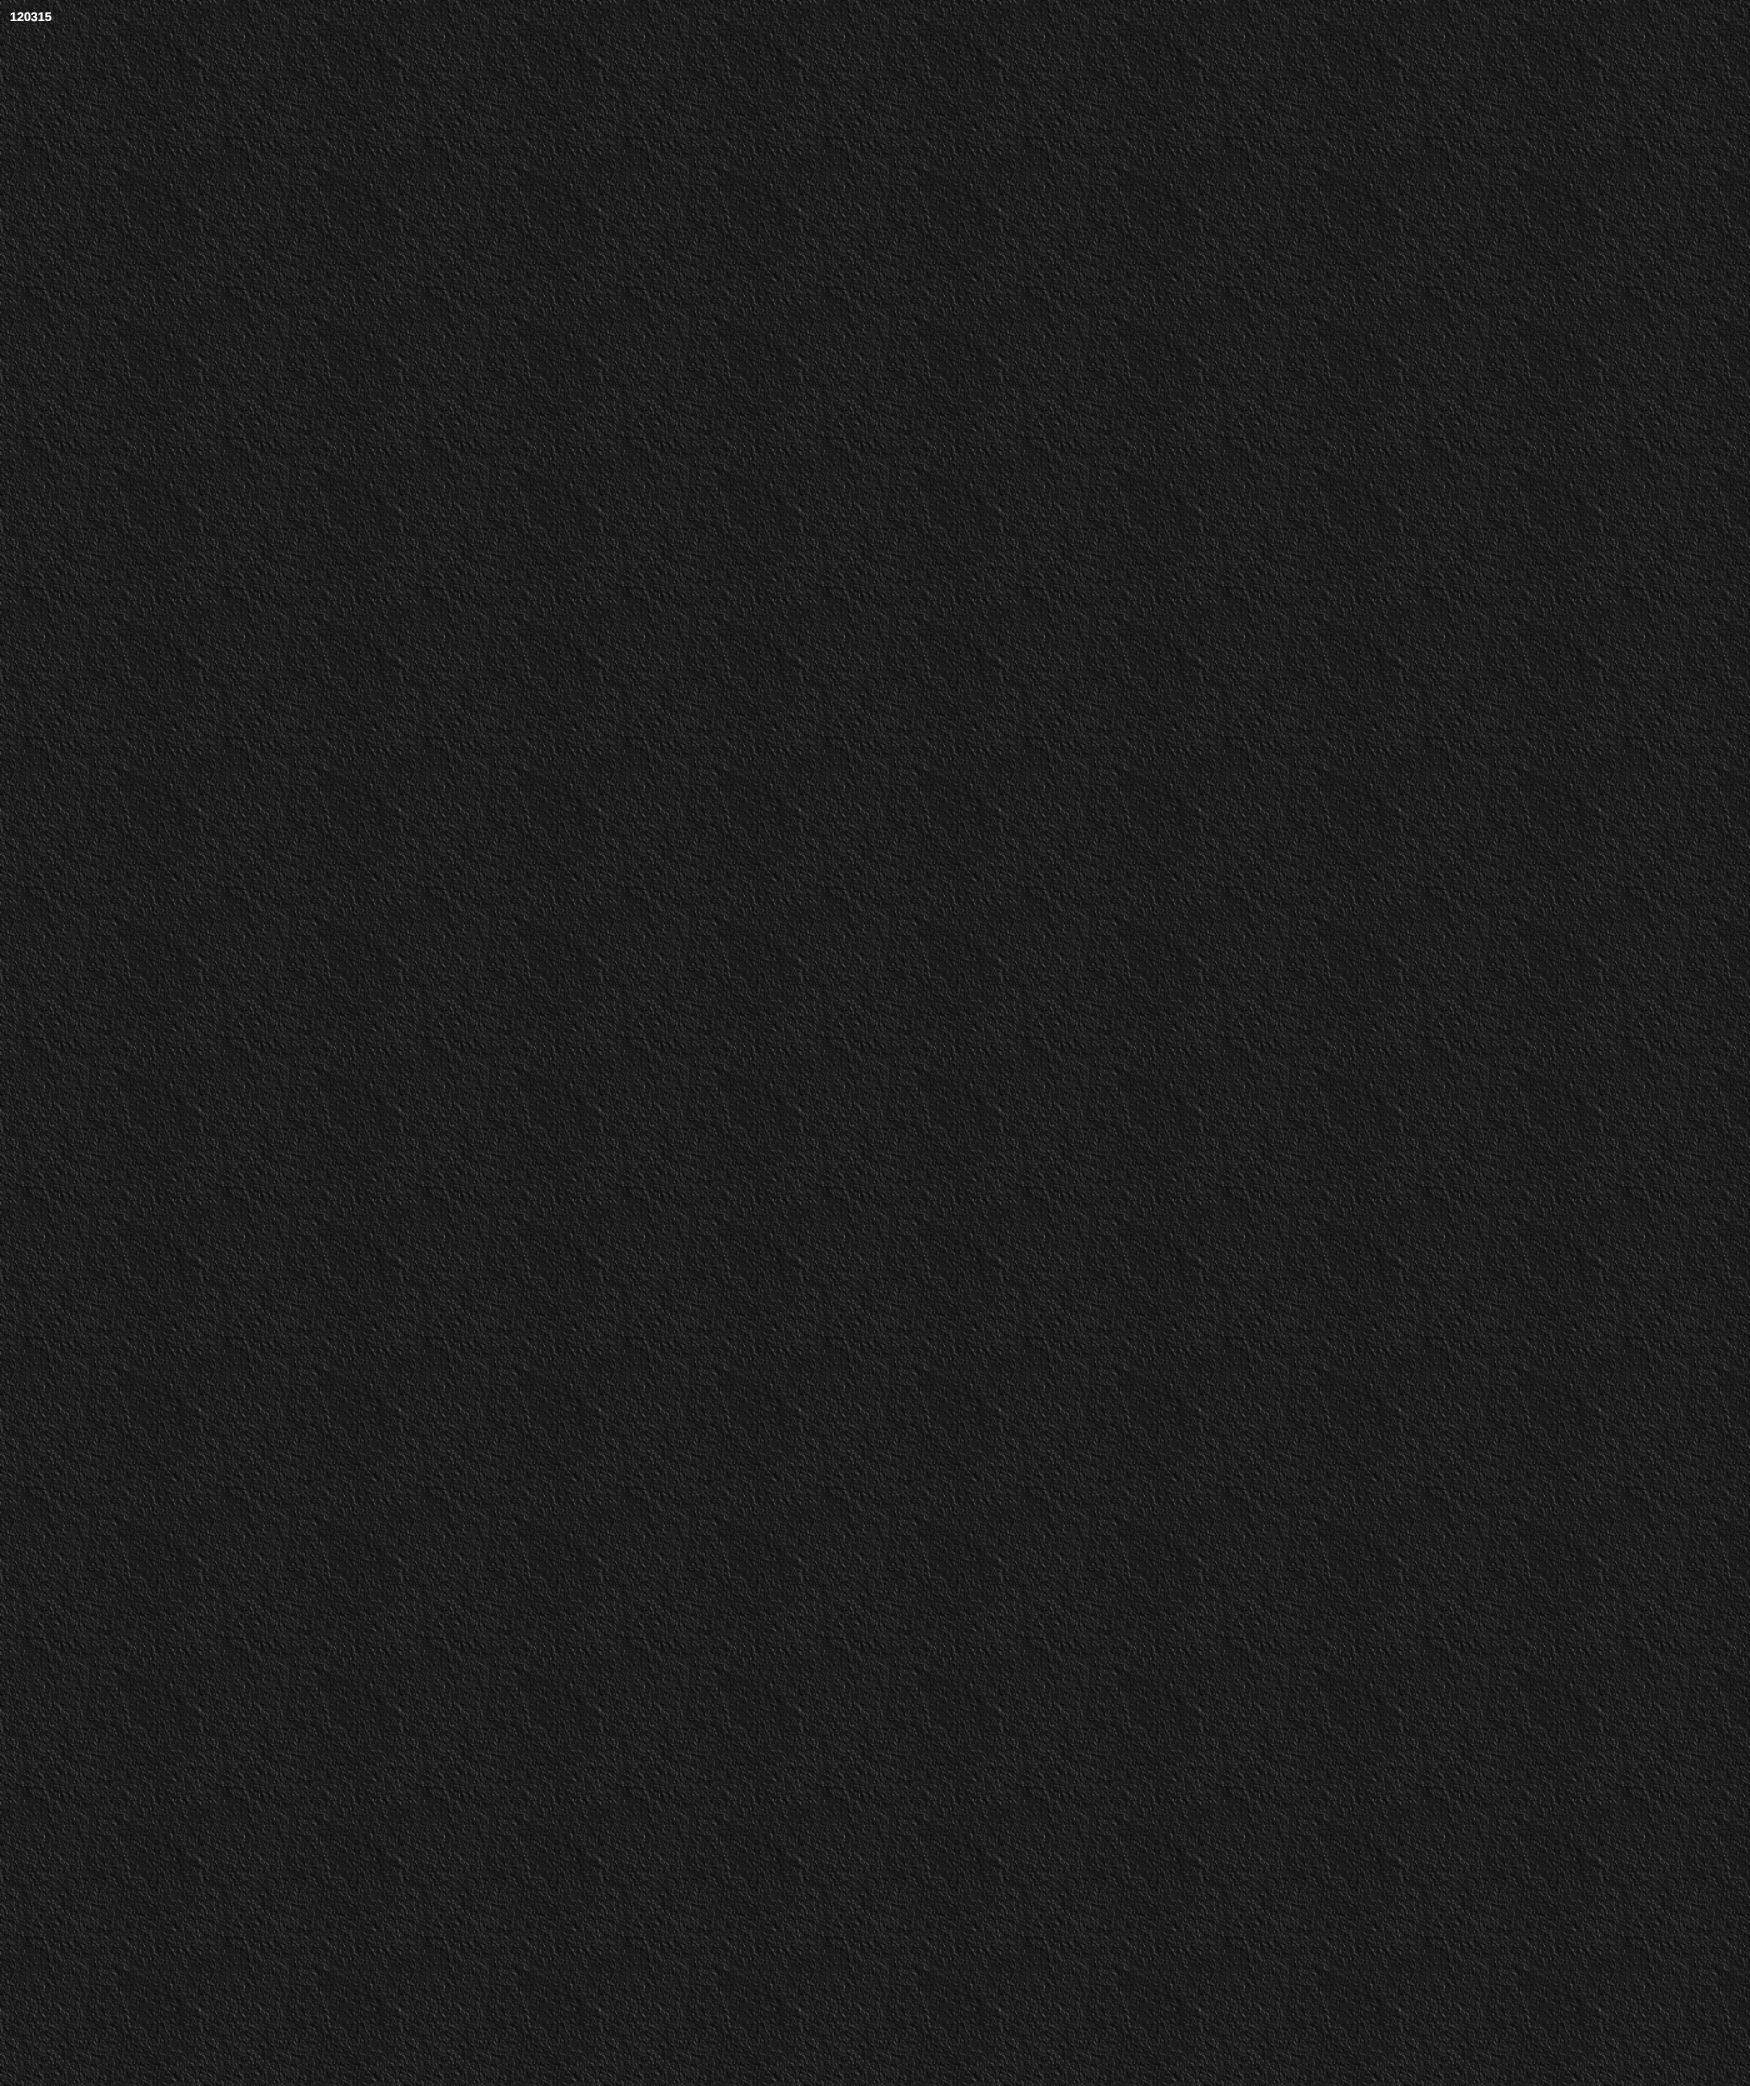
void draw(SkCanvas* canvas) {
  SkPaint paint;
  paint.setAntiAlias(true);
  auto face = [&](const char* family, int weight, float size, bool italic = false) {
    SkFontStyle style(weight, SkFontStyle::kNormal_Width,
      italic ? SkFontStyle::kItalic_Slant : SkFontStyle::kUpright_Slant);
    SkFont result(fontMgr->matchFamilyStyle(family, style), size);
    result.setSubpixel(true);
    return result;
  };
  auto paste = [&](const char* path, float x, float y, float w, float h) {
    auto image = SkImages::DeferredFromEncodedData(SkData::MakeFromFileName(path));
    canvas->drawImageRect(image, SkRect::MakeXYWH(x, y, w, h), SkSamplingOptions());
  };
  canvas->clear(0xffffffff);
  paste("img/1.png", 0, 0, 1750, 2086);
  auto f0 = face("Liberation Sans", 700, 12.5f);
  paint.setColor(0xffffffff);
  canvas->drawString("120315", 10, 21, f0, paint);
}
